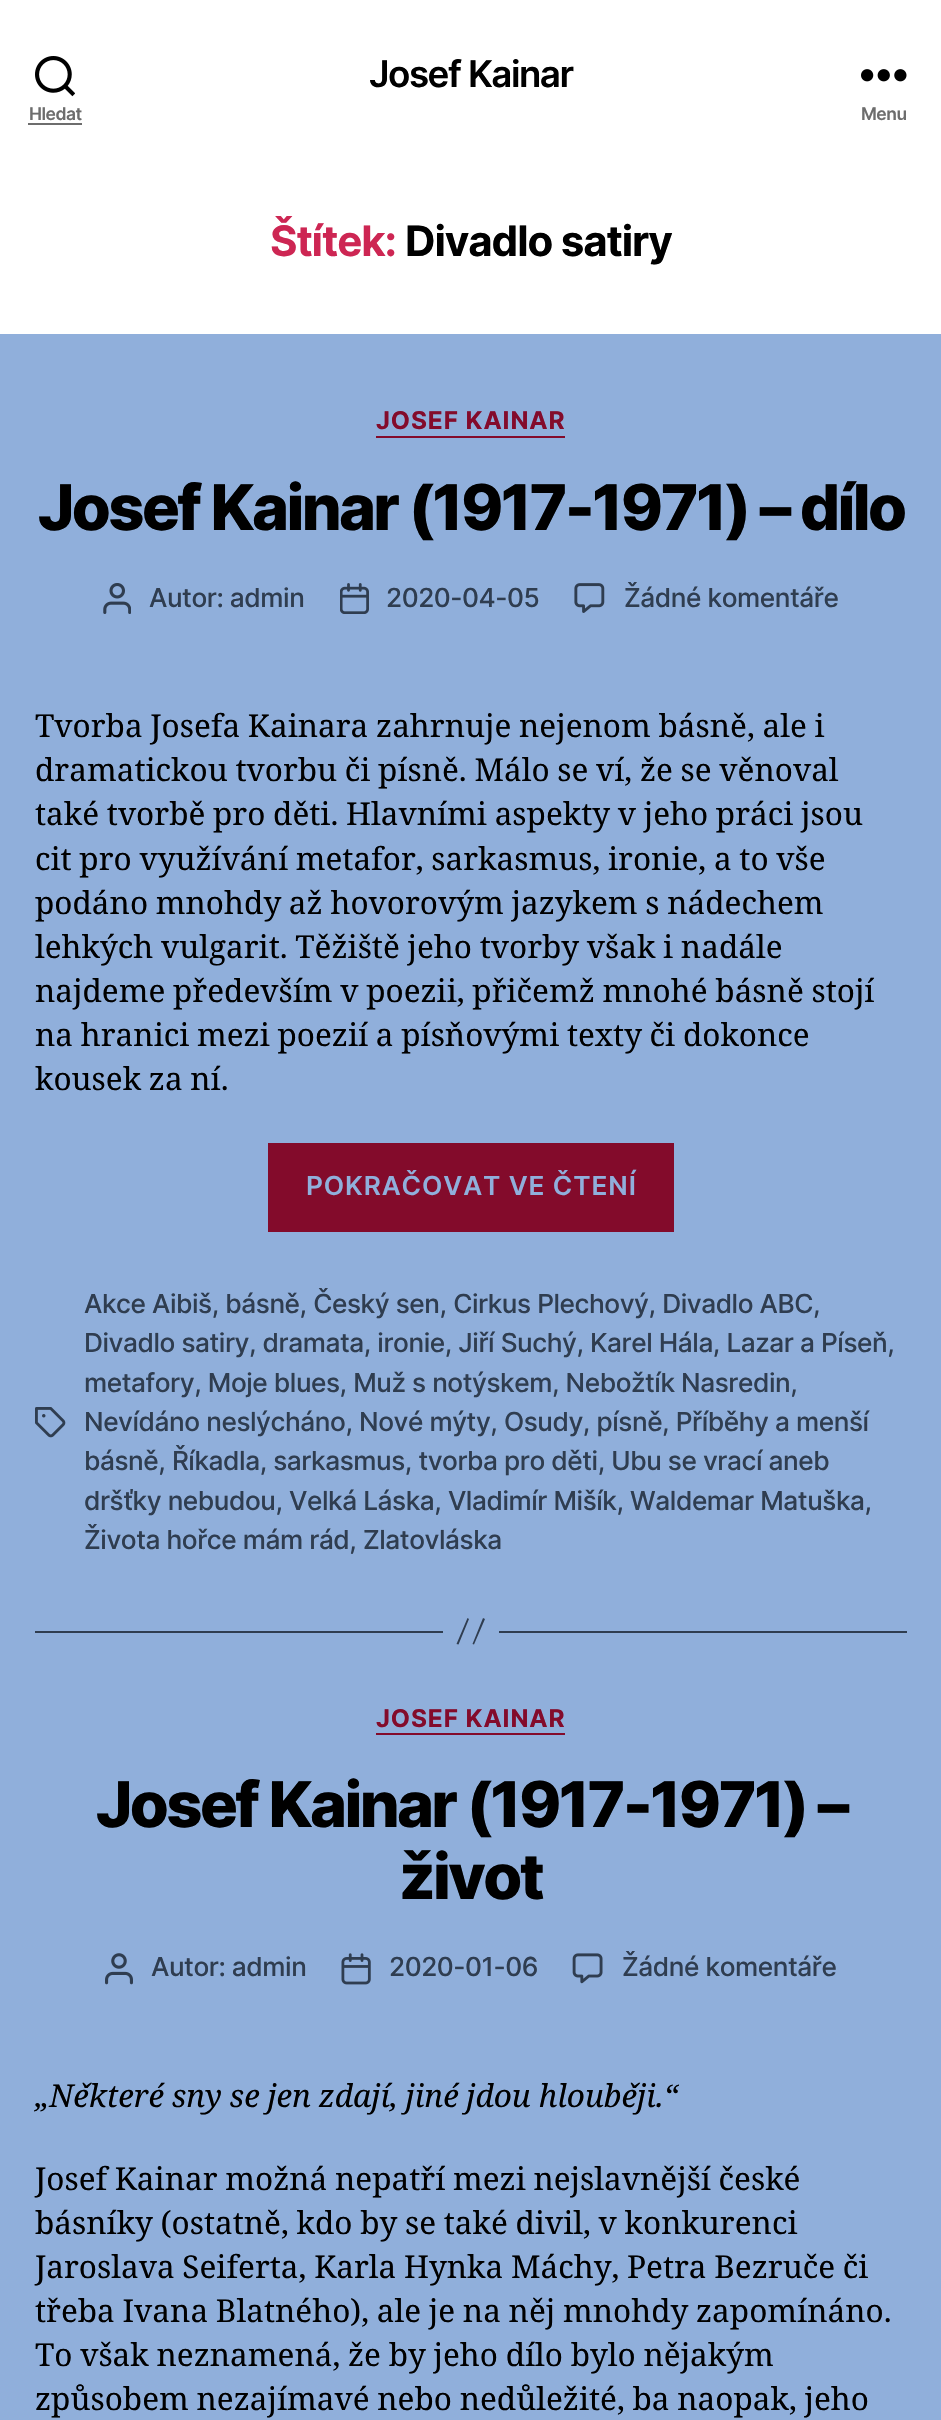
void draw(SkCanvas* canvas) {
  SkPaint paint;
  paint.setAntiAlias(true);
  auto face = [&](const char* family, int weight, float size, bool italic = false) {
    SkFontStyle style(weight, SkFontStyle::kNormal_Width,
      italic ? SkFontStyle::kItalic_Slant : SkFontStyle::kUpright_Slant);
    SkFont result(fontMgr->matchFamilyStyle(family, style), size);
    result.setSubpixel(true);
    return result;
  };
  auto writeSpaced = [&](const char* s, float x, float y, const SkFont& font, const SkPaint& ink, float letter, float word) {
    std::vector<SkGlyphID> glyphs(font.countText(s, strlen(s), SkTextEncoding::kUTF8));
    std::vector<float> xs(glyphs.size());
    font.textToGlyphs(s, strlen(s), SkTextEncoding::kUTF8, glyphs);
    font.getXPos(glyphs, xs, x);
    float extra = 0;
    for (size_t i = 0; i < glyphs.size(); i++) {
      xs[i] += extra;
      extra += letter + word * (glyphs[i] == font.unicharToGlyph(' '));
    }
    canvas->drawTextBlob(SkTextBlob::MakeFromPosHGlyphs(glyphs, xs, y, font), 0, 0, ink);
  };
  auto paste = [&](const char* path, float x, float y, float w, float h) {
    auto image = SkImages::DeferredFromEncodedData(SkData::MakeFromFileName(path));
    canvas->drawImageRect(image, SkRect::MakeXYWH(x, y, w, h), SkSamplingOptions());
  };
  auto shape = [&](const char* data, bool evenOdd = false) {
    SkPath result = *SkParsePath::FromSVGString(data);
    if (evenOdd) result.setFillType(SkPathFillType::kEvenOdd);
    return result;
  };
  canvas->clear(0xff90afdb);
  paint.setColor(0xffffffff);
  canvas->drawRect(SkRect::MakeXYWH(0, 0, 941, 334), paint);
  paste("img/1.png", 35, 56, 40, 41);
  paint.setColor(0xff6d6d6d);
  canvas->drawRect(SkRect::MakeXYWH(28, 123, 54, 2), paint);
  paste("img/2.png", 861, 69, 46, 13);
  paint.setColor(0xff830b2b);
  canvas->drawRect(SkRect::MakeXYWH(376, 436, 189, 2), paint);
  paste("img/3.png", 103, 583, 28, 31);
  paste("img/4.png", 340, 583, 29, 31);
  paste("img/5.png", 574, 583, 31, 30);
  canvas->drawRect(SkRect::MakeXYWH(268, 1143, 406, 89), paint);
  paste("img/6.png", 35, 1407, 31, 31);
  paint.setColor(0xff2f3d50);
  canvas->drawRect(SkRect::MakeXYWH(499, 1631, 408, 2), paint);
  canvas->drawRect(SkRect::MakeXYWH(35, 1631, 408, 2), paint);
  canvas->drawPath(shape("M467.5 1618L469 1619L458.5 1644.5L456.5 1644ZM483 1618L485 1619L474 1644.5L472.5 1644Z"), paint);
  paint.setColor(0xff830b2b);
  canvas->drawRect(SkRect::MakeXYWH(376, 1733, 189, 2), paint);
  paste("img/7.png", 105, 1953, 28, 32);
  paste("img/8.png", 341, 1953, 30, 32);
  paste("img/9.png", 572, 1953, 31, 31);
  auto f0 = face("Inter", 600, 36.75f);
  paint.setColor(0xff000000);
  writeSpaced("Josef Kainar", 369, 87, f0, paint, -1.5f, 0);
  auto f1 = face("Inter", 600, 17.5f);
  paint.setColor(0xff6d6d6d);
  writeSpaced("Hledat", 29, 120, f1, paint, -0.5f, 0);
  writeSpaced("Menu", 861, 120, f1, paint, -0.5f, 0);
  auto f2 = face("Inter", 700, 42);
  paint.setColor(0xffcd2653);
  writeSpaced("Štítek:", 270, 256, f2, paint, -1.1f, 0);
  paint.setColor(0xff000000);
  writeSpaced("Divadlo satiry", 405, 256, f2, paint, -1.1f, 0);
  auto f3 = face("Inter", 700, 24.5f);
  paint.setColor(0xff830b2b);
  writeSpaced("JOSEF KAINAR", 376, 429, f3, paint, 0.9f, 0);
  auto f4 = face("Inter", 800, 63);
  paint.setColor(0xff000000);
  writeSpaced("Josef Kainar (1917-1971) – dílo", 38, 530, f4, paint, -2.6f, 0);
  auto f5 = face("Inter", 500, 26.25f);
  paint.setColor(0xff2f3d50);
  {
    const struct { const char* s; float x, y; } items[] = {
      {"Autor: admin", 149, 607},
      {"2020-04-05", 386, 607},
      {"Žádné komentáře", 624, 607},
    };
    for (auto [s, x, y] : items) {
      writeSpaced(s, x, y, f5, paint, -0.45f, 0);
    }
  }
  auto f6 = face("Noto Serif", 400, 31.5f);
  paint.setColor(0xff000000);
  {
    const struct { const char* s; float x, y; } items[] = {
      {"Tvorba Josefa Kainara zahrnuje nejenom básně, ale i", 35, 737},
      {"dramatickou tvorbu či písně. Málo se ví, že se věnoval", 35, 781},
      {"také tvorbě pro děti. Hlavními aspekty v jeho práci jsou", 35, 825},
      {"cit pro využívání metafor, sarkasmus, ironie, a to vše", 35, 870},
      {"podáno mnohdy až hovorovým jazykem s nádechem", 35, 914},
      {"lehkých vulgarit. Těžiště jeho tvorby však i nadále", 35, 958},
      {"najdeme především v poezii, přičemž mnohé básně stojí", 35, 1002},
      {"na hranici mezi poezií a písňovými texty či dokonce", 35, 1046},
      {"kousek za ní.", 35, 1090},
    };
    for (auto [s, x, y] : items) {
      writeSpaced(s, x, y, f6, paint, 0, -0.5f);
    }
  }
  auto f7 = face("Inter", 600, 26.25f);
  paint.setColor(0xff90afdb);
  writeSpaced("POKRAČOVAT VE ČTENÍ", 306, 1195, f7, paint, 0.9f, 0);
  paint.setColor(0xff2f3d50);
  {
    const struct { const char* s; float x, y; } items[] = {
      {"Akce Aibiš, básně, Český sen, Cirkus Plechový, Divadlo ABC,", 84, 1313},
      {"Divadlo satiry, dramata, ironie, Jiří Suchý, Karel Hála, Lazar a Píseň,", 84, 1352},
      {"metafory, Moje blues, Muž s notýskem, Nebožtík Nasredin,", 84, 1392},
      {"Nevídáno neslýcháno, Nové mýty, Osudy, písně, Příběhy a menší", 84, 1431},
      {"básně, Říkadla, sarkasmus, tvorba pro děti, Ubu se vrací aneb", 84, 1470},
      {"dršťky nebudou, Velká Láska, Vladimír Mišík, Waldemar Matuška,", 84, 1510},
      {"Života hořce mám rád, Zlatovláska", 84, 1549},
    };
    for (auto [s, x, y] : items) {
      writeSpaced(s, x, y, f5, paint, -0.45f, 0);
    }
  }
  paint.setColor(0xff830b2b);
  writeSpaced("JOSEF KAINAR", 376, 1727, f3, paint, 0.9f, 0);
  paint.setColor(0xff000000);
  writeSpaced("Josef Kainar (1917-1971) –", 96, 1827, f4, paint, -2.6f, 0);
  writeSpaced("život", 399, 1899, f4, paint, -2.6f, 0);
  paint.setColor(0xff2f3d50);
  {
    const struct { const char* s; float x, y; } items[] = {
      {"Autor: admin", 151, 1976},
      {"2020-01-06", 389, 1976},
      {"Žádné komentáře", 622, 1976},
    };
    for (auto [s, x, y] : items) {
      writeSpaced(s, x, y, f5, paint, -0.45f, 0);
    }
  }
  auto f8 = face("Noto Serif", 400, 31.5f, true);
  paint.setColor(0xff000000);
  writeSpaced("„Některé sny se jen zdají, jiné jdou hlouběji.“", 35, 2107, f8, paint, 0, -0.5f);
  {
    const struct { const char* s; float x, y; } items[] = {
      {"Josef Kainar možná nepatří mezi nejslavnější české", 35, 2190},
      {"básníky (ostatně, kdo by se také divil, v konkurenci", 35, 2234},
      {"Jaroslava Seiferta, Karla Hynka Máchy, Petra Bezruče či", 35, 2278},
      {"třeba Ivana Blatného), ale je na něj mnohdy zapomínáno.", 35, 2322},
      {"To však neznamená, že by jeho dílo bylo nějakým", 35, 2366},
      {"způsobem nezajímavé nebo nedůležité, ba naopak, jeho", 35, 2410},
    };
    for (auto [s, x, y] : items) {
      writeSpaced(s, x, y, f6, paint, 0, -0.5f);
    }
  }
}
